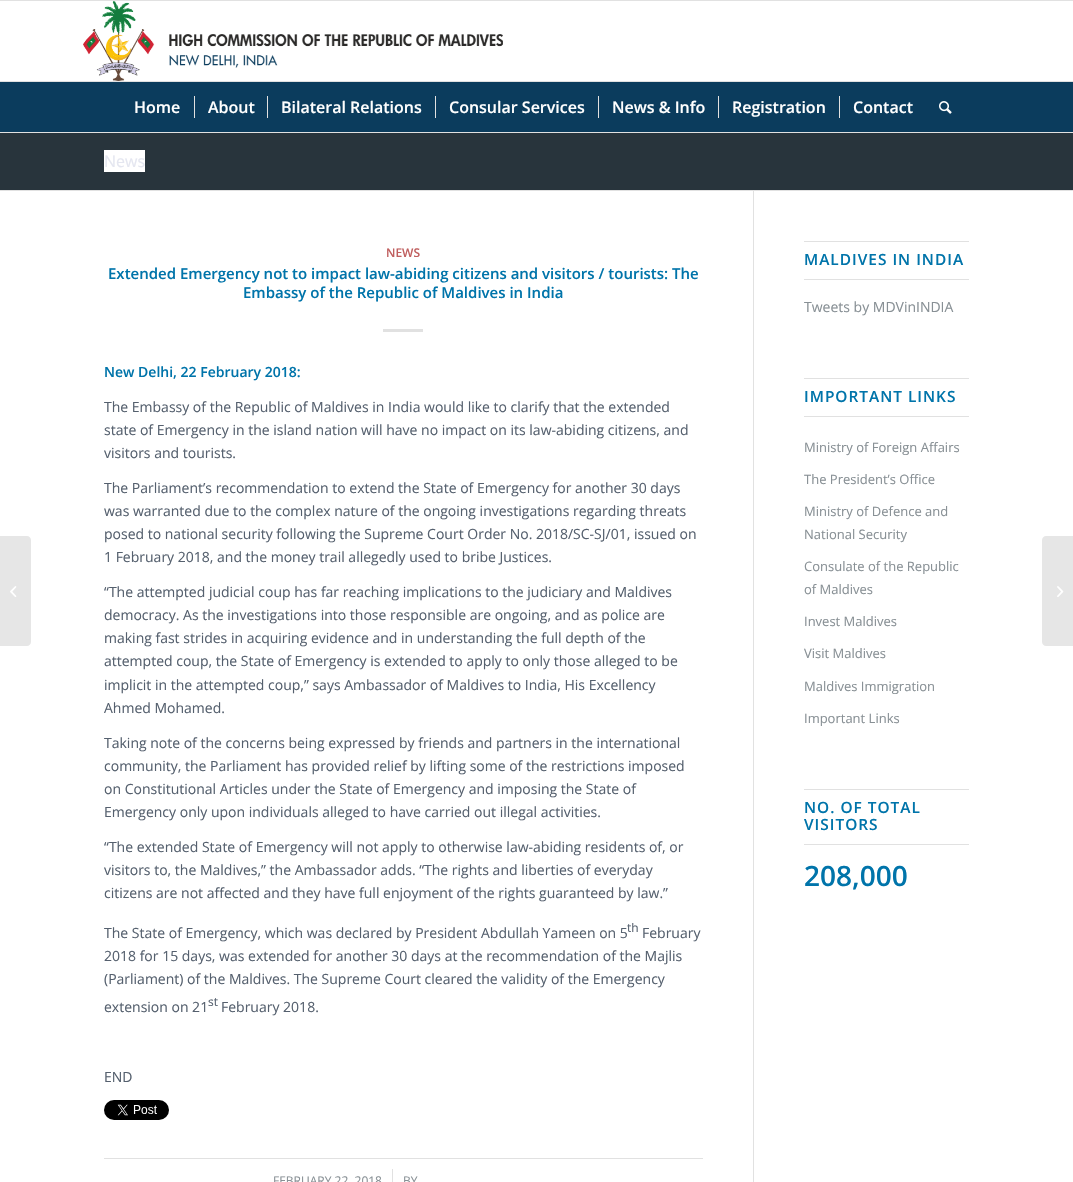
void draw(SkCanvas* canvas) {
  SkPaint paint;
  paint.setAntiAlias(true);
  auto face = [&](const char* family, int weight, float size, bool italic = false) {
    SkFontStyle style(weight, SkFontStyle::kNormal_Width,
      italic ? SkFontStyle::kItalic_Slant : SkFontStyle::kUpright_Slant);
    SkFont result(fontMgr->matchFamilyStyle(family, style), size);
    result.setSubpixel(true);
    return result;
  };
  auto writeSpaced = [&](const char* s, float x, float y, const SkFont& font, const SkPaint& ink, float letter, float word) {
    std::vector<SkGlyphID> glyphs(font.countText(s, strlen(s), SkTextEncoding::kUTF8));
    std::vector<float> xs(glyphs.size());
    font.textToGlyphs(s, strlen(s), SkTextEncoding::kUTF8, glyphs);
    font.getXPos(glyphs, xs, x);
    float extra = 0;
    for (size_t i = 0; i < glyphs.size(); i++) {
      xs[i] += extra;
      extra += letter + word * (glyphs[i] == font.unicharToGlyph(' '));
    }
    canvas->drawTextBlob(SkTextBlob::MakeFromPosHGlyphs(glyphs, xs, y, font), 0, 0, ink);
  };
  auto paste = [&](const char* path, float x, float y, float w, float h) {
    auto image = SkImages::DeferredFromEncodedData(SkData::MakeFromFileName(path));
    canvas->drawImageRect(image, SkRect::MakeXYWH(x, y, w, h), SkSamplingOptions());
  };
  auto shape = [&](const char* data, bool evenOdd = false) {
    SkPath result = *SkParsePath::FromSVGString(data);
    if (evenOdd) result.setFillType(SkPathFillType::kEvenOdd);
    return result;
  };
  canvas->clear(0xffffffff);
  paint.setColor(0xffe1e1e1);
  canvas->drawRect(SkRect::MakeXYWH(0, 0, 1073, 1), paint);
  canvas->drawRect(SkRect::MakeXYWH(0, 132, 1073, 1), paint);
  paste("img/1.png", 83, 1, 420, 80);
  {
    const struct { float x, y, w, h; SkColor color; } items[] = {
      {0, 82, 1073, 50, 0xff0b3c5d},
      {0, 81, 1073, 1, 0xffe1e1e1},
      {194, 96, 1, 22, 0xffe1e1e1},
      {267, 96, 1, 22, 0xffe1e1e1},
      {435, 96, 1, 22, 0xffe1e1e1},
      {598, 96, 1, 22, 0xffe1e1e1},
      {718, 96, 1, 22, 0xffe1e1e1},
      {839, 96, 1, 22, 0xffe1e1e1},
    };
    for (auto [x, y, w, h, color] : items) {
      paint.setColor(color);
      canvas->drawRect(SkRect::MakeXYWH(x, y, w, h), paint);
    }
  }
  paste("img/2.png", 939, 101, 13, 13);
  paint.setColor(0xffe6e6e6);
  canvas->drawPath(shape("M0 536H27C29 536 31 538 31 540V642C31 644 29 646 27 646H0Z"), paint);
  paste("img/3.png", 10, 586, 7, 11);
  {
    const struct { float x, y, w, h; SkColor color; } items[] = {
      {0, 133, 1073, 57, 0xff28343c},
      {104, 150, 41, 22, 0xffffffff},
      {0, 190, 1073, 1, 0xffe1e1e1},
      {753, 191, 1, 991, 0xffe1e1e1},
      {383, 329, 40, 3, 0xffe1e1e1},
    };
    for (auto [x, y, w, h, color] : items) {
      paint.setColor(color);
      canvas->drawRect(SkRect::MakeXYWH(x, y, w, h), paint);
    }
  }
  paste("img/4.png", 104, 1100, 65, 20);
  {
    const struct { float x, y, w, h; SkColor color; } items[] = {
      {104, 1158, 599, 1, 0xffe1e1e1},
      {392, 1169, 1, 13, 0xffe1e1e1},
      {804, 241, 165, 1, 0xffe1e1e1},
      {804, 279, 165, 1, 0xffe1e1e1},
      {804, 378, 165, 1, 0xffe1e1e1},
      {804, 416, 165, 1, 0xffe1e1e1},
      {804, 789, 165, 1, 0xffe1e1e1},
      {804, 844, 165, 1, 0xffe1e1e1},
    };
    for (auto [x, y, w, h, color] : items) {
      paint.setColor(color);
      canvas->drawRect(SkRect::MakeXYWH(x, y, w, h), paint);
    }
  }
  paint.setColor(0xffe6e6e6);
  canvas->drawPath(shape("M1046 536H1073V646H1046C1044 646 1042 644 1042 642V540C1042 538 1044 536 1046 536Z"), paint);
  paste("img/5.png", 1057, 586, 7, 11);
  auto f0 = face("Open Sans", 600, 16);
  paint.setColor(0xffffffff);
  {
    const struct { const char* s; float x, y; } items[] = {
      {"Home", 134, 113},
      {"About", 208, 113},
      {"Bilateral Relations", 281, 113},
      {"Consular Services", 449, 113},
      {"News & Info", 612, 113},
      {"Registration", 732, 113},
      {"Contact", 853, 113},
    };
    for (auto [s, x, y] : items) {
      canvas->drawString(s, x, y, f0, paint);
    }
  }
  auto f1 = face("Open Sans", 400, 16);
  paint.setColor(0xffe4e6f0);
  canvas->drawString("News", 104, 167, f1, paint);
  auto f2 = face("Open Sans", 600, 12);
  paint.setColor(0xffc05f5f);
  canvas->drawString("NEWS", 386, 257, f2, paint);
  auto f3 = face("Open Sans", 600, 15);
  paint.setColor(0xff0074aa);
  canvas->drawString("Extended Emergency not to impact law-abiding citizens and visitors / tourists: The", 108, 279, f3, paint);
  canvas->drawString("Embassy of the Republic of Maldives in India", 243, 298, f3, paint);
  auto f4 = face("Open Sans", 600, 14);
  canvas->drawString("New Delhi, 22 February 2018:", 104, 377, f4, paint);
  auto f5 = face("Open Sans", 400, 14);
  paint.setColor(0xff55606e);
  {
    const struct { const char* s; float x, y; } items[] = {
      {"The Embassy of the Republic of Maldives in India would like to clarify that the extended", 104, 412},
      {"state of Emergency in the island nation will have no impact on its law-abiding citizens, and", 104, 435},
      {"visitors and tourists.", 104, 458},
      {"The Parliament’s recommendation to extend the State of Emergency for another 30 days", 104, 493},
      {"was warranted due to the complex nature of the ongoing investigations regarding threats", 104, 516},
      {"posed to national security following the Supreme Court Order No. 2018/SC-SJ/01, issued on", 104, 539},
      {"1 February 2018, and the money trail allegedly used to bribe Justices.", 104, 562},
      {"“The attempted judicial coup has far reaching implications to the judiciary and Maldives", 104, 597},
      {"democracy. As the investigations into those responsible are ongoing, and as police are", 104, 620},
      {"making fast strides in acquiring evidence and in understanding the full depth of the", 104, 643},
      {"attempted coup, the State of Emergency is extended to apply to only those alleged to be", 104, 666},
      {"implicit in the attempted coup,” says Ambassador of Maldives to India, His Excellency", 104, 690},
      {"Ahmed Mohamed.", 104, 713},
      {"Taking note of the concerns being expressed by friends and partners in the international", 104, 748},
      {"community, the Parliament has provided relief by lifting some of the restrictions imposed", 104, 771},
      {"on Constitutional Articles under the State of Emergency and imposing the State of", 104, 794},
      {"Emergency only upon individuals alleged to have carried out illegal activities.", 104, 817},
      {"“The extended State of Emergency will not apply to otherwise law-abiding residents of, or", 104, 852},
      {"visitors to, the Maldives,” the Ambassador adds. “The rights and liberties of everyday", 104, 875},
      {"citizens are not affected and they have full enjoyment of the rights guaranteed by law.”", 104, 898},
      {"The State of Emergency, which was declared by President Abdullah Yameen on 5", 104, 938},
    };
    for (auto [s, x, y] : items) {
      canvas->drawString(s, x, y, f5, paint);
    }
  }
  auto f6 = face("Open Sans", 400, 12);
  canvas->drawString("th", 627, 932, f6, paint);
  {
    const struct { const char* s; float x, y; } items[] = {
      {"February", 642, 938},
      {"2018 for 15 days, was extended for another 30 days at the recommendation of the Majlis", 104, 961},
      {"(Parliament) of the Maldives. The Supreme Court cleared the validity of the Emergency", 104, 984},
      {"extension on 21", 104, 1012},
    };
    for (auto [s, x, y] : items) {
      canvas->drawString(s, x, y, f5, paint);
    }
  }
  canvas->drawString("st", 208, 1006, f6, paint);
  canvas->drawString("February 2018.", 221, 1012, f5, paint);
  canvas->drawString("END", 104, 1082, f5, paint);
  paint.setColor(0xff889095);
  canvas->drawString("FEBRUARY 22, 2018", 273, 1185, f6, paint);
  canvas->drawString("BY", 403, 1185, f6, paint);
  auto f7 = face("Open Sans", 600, 15.4f);
  paint.setColor(0xff0074aa);
  writeSpaced("MALDIVES IN INDIA", 804, 265, f7, paint, 1, 0);
  paint.setColor(0xff889095);
  canvas->drawString("Tweets by MDVinINDIA", 804, 312, f5, paint);
  paint.setColor(0xff0074aa);
  writeSpaced("IMPORTANT LINKS", 804, 402, f7, paint, 1, 0);
  auto f8 = face("Open Sans", 400, 13);
  paint.setColor(0xff889095);
  {
    const struct { const char* s; float x, y; } items[] = {
      {"Ministry of Foreign Affairs", 804, 452},
      {"The President’s Office", 804, 484},
      {"Ministry of Defence and", 804, 516},
      {"National Security", 804, 539},
      {"Consulate of the Republic", 804, 571},
      {"of Maldives", 804, 594},
      {"Invest Maldives", 804, 626},
      {"Visit Maldives", 804, 658},
      {"Maldives Immigration", 804, 691},
      {"Important Links", 804, 723},
    };
    for (auto [s, x, y] : items) {
      canvas->drawString(s, x, y, f8, paint);
    }
  }
  paint.setColor(0xff0074aa);
  writeSpaced("NO. OF TOTAL", 804, 813, f7, paint, 1, 0);
  writeSpaced("VISITORS", 804, 830, f7, paint, 1, 0);
  auto f9 = face("Open Sans", 600, 28);
  canvas->drawString("208,000", 804, 886, f9, paint);
}
